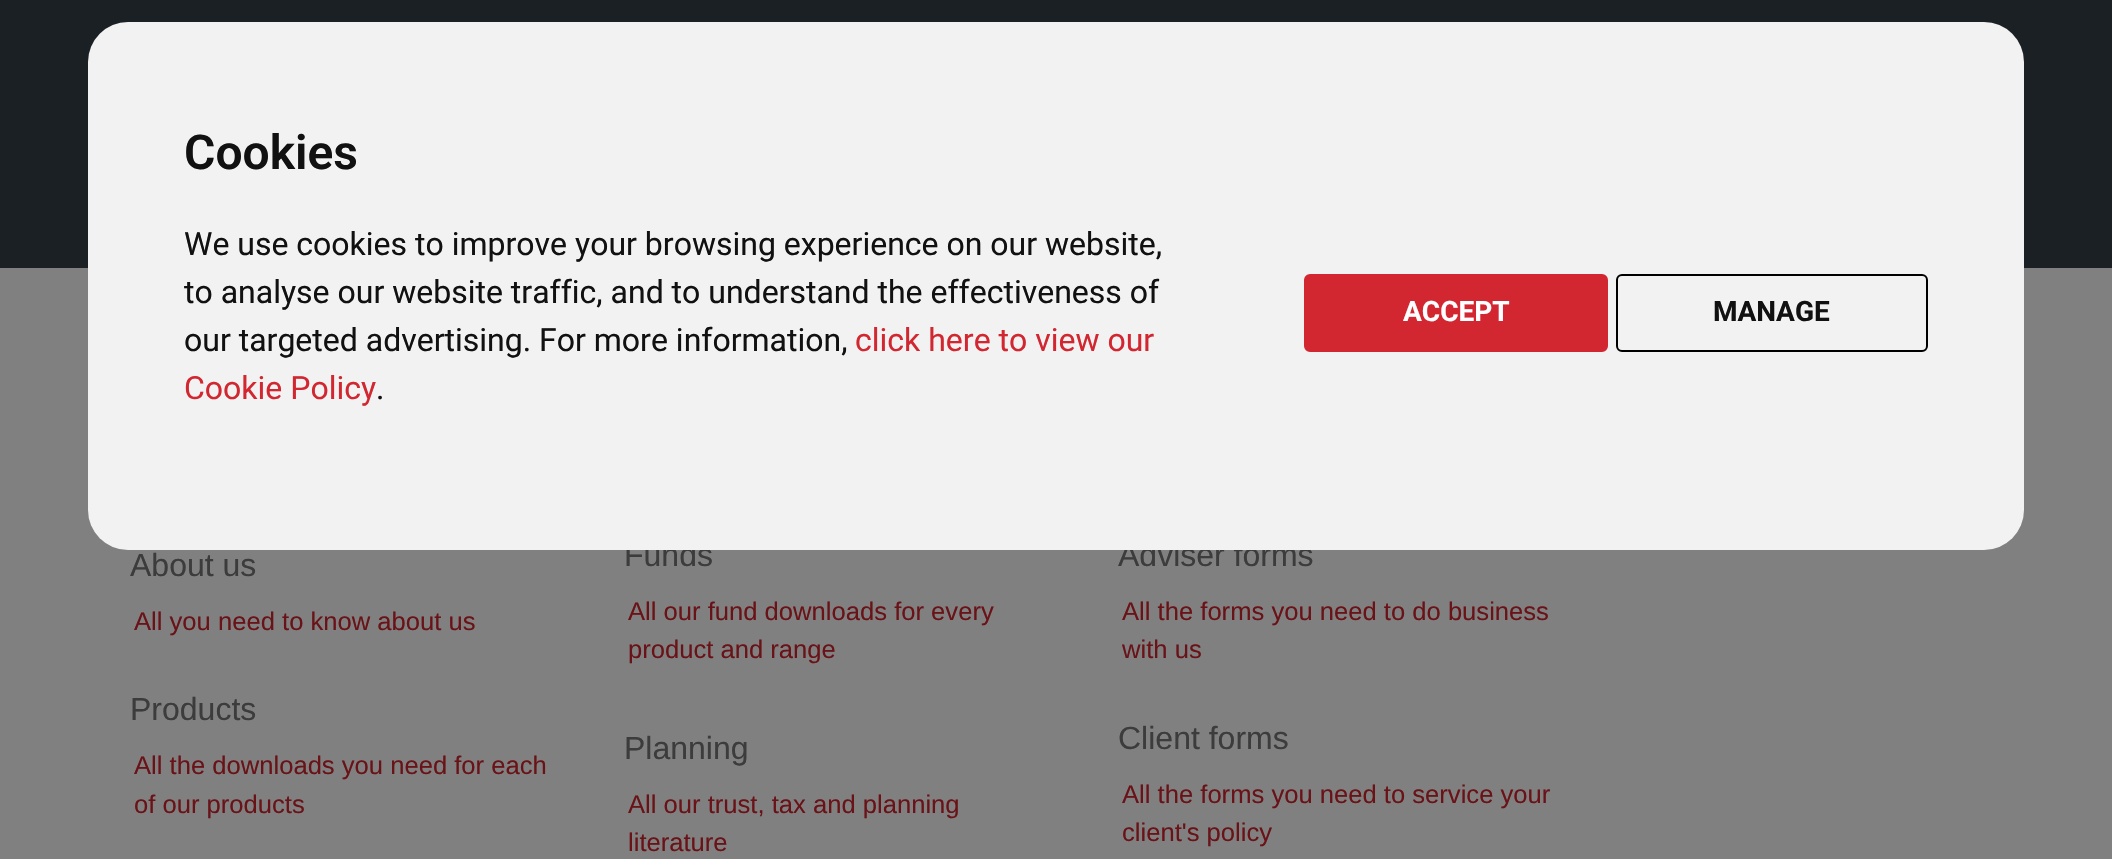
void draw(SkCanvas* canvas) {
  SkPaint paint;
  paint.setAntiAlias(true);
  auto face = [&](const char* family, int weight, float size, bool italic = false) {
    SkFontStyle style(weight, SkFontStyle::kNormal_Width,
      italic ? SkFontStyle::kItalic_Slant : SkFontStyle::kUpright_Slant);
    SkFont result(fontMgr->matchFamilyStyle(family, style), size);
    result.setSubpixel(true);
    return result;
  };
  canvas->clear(0xff808080);
  paint.setColor(0xff1a2024);
  canvas->drawRect(SkRect::MakeXYWH(0, 0, 2112, 268), paint);
  auto f0 = face("Liberation Sans", 400, 32);
  paint.setColor(0xff3c3c3c);
  canvas->drawString("About us", 130, 576, f0, paint);
  auto f1 = face("Liberation Sans", 400, 25.6f);
  paint.setColor(0xff691318);
  canvas->drawString("All you need to know about us", 134, 630, f1, paint);
  paint.setColor(0xff3c3c3c);
  canvas->drawString("Products", 130, 720, f0, paint);
  paint.setColor(0xff691318);
  canvas->drawString("All the downloads you need for each", 134, 774, f1, paint);
  canvas->drawString("of our products", 134, 813, f1, paint);
  paint.setColor(0xff3c3c3c);
  canvas->drawString("Funds", 624, 566, f0, paint);
  paint.setColor(0xff691318);
  canvas->drawString("All our fund downloads for every", 628, 620, f1, paint);
  canvas->drawString("product and range", 628, 658, f1, paint);
  paint.setColor(0xff3c3c3c);
  canvas->drawString("Planning", 624, 759, f0, paint);
  paint.setColor(0xff691318);
  canvas->drawString("All our trust, tax and planning", 628, 813, f1, paint);
  canvas->drawString("literature", 628, 851, f1, paint);
  paint.setColor(0xff3c3c3c);
  canvas->drawString("Adviser forms", 1118, 566, f0, paint);
  paint.setColor(0xfff2f2f2);
  canvas->drawRoundRect(SkRect::MakeXYWH(88, 22, 1936, 528), 40, 40, paint);
  paint.setStroke(true);
  paint.setStrokeWidth(2);
  paint.setColor(0xff000000);
  canvas->drawRoundRect(SkRect::MakeXYWH(1617, 275, 310, 76), 5, 5, paint);
  auto f2 = face("Roboto", 700, 28);
  paint.setStroke(false);
  paint.setColor(0xff111111);
  canvas->drawString("MANAGE", 1713, 321, f2, paint);
  paint.setColor(0xffd22630);
  canvas->drawRoundRect(SkRect::MakeXYWH(1305, 275, 302, 76), 5, 5, paint);
  paint.setStroke(true);
  canvas->drawRoundRect(SkRect::MakeXYWH(1305, 275, 302, 76), 5, 5, paint);
  paint.setStroke(false);
  paint.setColor(0xffffffff);
  canvas->drawString("ACCEPT", 1403, 321, f2, paint);
  auto f3 = face("Roboto", 400, 32);
  paint.setColor(0xff111111);
  canvas->drawString(".", 376, 399, f3, paint);
  paint.setColor(0xffd22630);
  canvas->drawString("Cookie Policy", 184, 399, f3, paint);
  canvas->drawString("click here to view our", 855, 351, f3, paint);
  paint.setColor(0xff111111);
  {
    const struct { const char* s; float x, y; } items[] = {
      {"our targeted advertising. For more information,", 184, 351},
      {"to analyse our website traffic, and to understand the effectiveness of", 184, 303},
      {"We use cookies to improve your browsing experience on our website,", 184, 255},
    };
    for (auto [s, x, y] : items) {
      canvas->drawString(s, x, y, f3, paint);
    }
  }
  auto f4 = face("Roboto", 600, 48);
  canvas->drawString("Cookies", 184, 169, f4, paint);
  paint.setColor(0xff691318);
  canvas->drawString("All the forms you need to do business", 1122, 620, f1, paint);
  canvas->drawString("with us", 1122, 658, f1, paint);
  paint.setColor(0xff3c3c3c);
  canvas->drawString("Client forms", 1118, 749, f0, paint);
  paint.setColor(0xff691318);
  canvas->drawString("All the forms you need to service your", 1122, 803, f1, paint);
  canvas->drawString("client's policy", 1122, 841, f1, paint);
}
